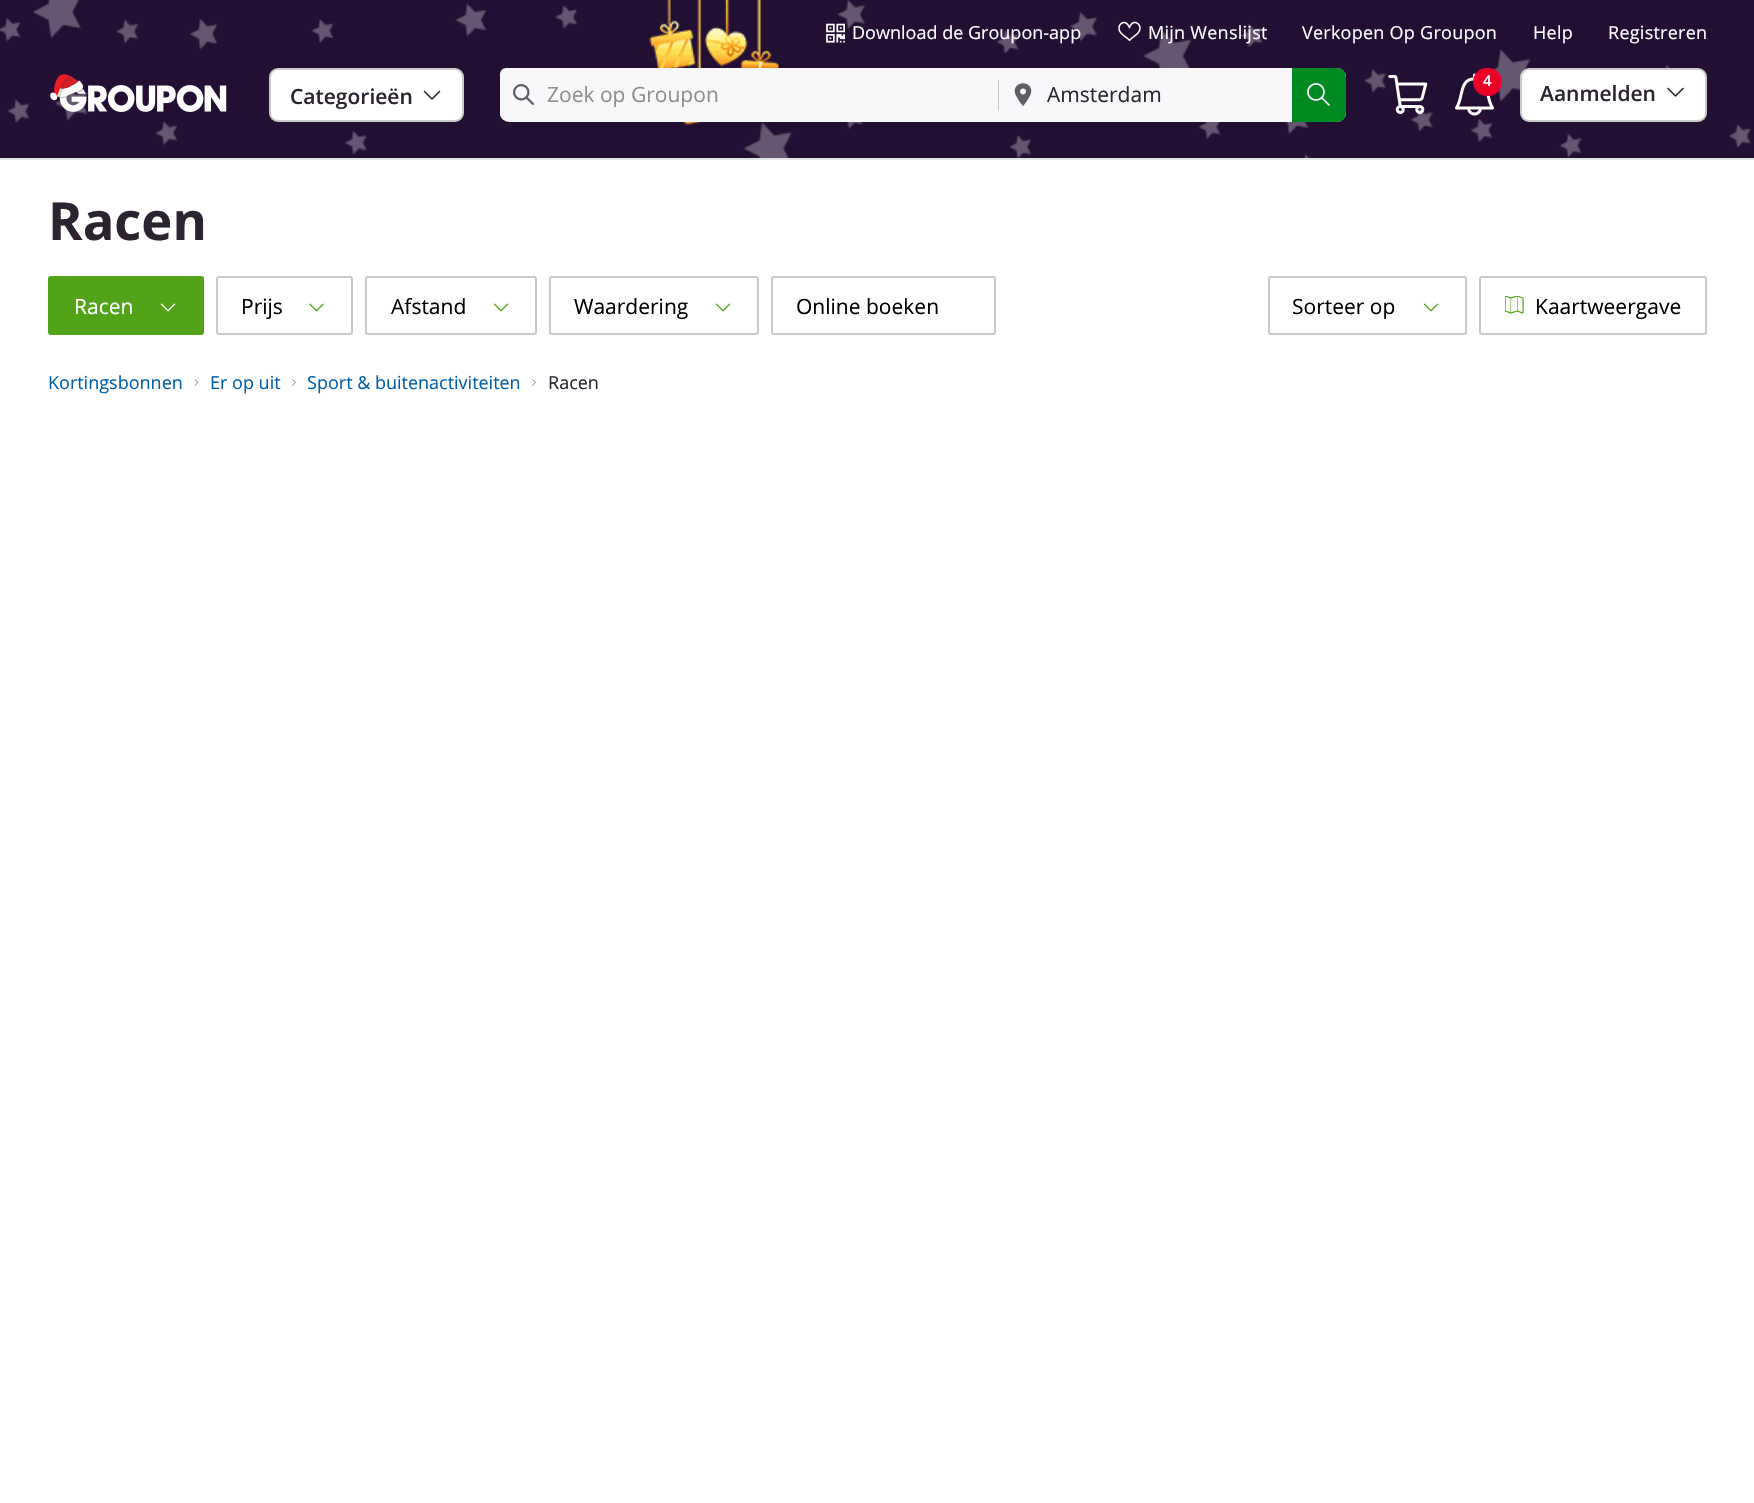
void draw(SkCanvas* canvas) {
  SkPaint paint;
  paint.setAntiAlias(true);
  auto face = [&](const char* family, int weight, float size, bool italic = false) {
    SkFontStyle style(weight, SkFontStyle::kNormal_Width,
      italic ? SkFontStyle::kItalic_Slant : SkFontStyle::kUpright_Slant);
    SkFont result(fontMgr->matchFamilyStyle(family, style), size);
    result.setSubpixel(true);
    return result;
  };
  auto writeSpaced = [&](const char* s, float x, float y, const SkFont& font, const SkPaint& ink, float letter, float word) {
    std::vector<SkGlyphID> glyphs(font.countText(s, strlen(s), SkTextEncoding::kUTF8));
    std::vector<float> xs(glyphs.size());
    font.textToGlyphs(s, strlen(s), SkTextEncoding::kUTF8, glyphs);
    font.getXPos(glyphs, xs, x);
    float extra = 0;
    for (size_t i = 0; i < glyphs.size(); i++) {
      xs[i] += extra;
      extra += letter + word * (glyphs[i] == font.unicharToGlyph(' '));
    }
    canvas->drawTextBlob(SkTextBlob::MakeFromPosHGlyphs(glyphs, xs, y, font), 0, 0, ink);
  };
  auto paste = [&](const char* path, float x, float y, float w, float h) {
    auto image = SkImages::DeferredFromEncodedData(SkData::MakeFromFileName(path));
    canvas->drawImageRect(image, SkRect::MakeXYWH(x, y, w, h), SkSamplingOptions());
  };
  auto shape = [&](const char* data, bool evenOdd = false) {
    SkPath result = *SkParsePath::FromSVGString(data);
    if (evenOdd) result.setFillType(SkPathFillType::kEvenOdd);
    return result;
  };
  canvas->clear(0xffffffff);
  paste("img/1.png", 0, 0, 1754, 158);
  paste("img/2.png", 826, 23, 19, 20);
  paste("img/3.png", 1118, 21, 23, 20);
  paste("img/4.png", 50, 74, 177, 38);
  paint.setColor(0xffffffff);
  canvas->drawRoundRect(SkRect::MakeXYWH(270, 69, 193, 52), 8, 8, paint);
  paint.setStroke(true);
  paint.setStrokeWidth(2);
  paint.setColor(0xffcacacc);
  canvas->drawRoundRect(SkRect::MakeXYWH(270, 69, 193, 52), 8, 8, paint);
  paste("img/5.png", 423, 90, 18, 10);
  paint.setStroke(false);
  paint.setColor(0xfff8f7fa);
  canvas->drawRoundRect(SkRect::MakeXYWH(500, 68, 846, 54), 9, 9, paint);
  canvas->drawRoundRect(SkRect::MakeXYWH(500, 68, 498, 52), 6, 6, paint);
  paste("img/6.png", 513, 84, 21, 21);
  paint.setColor(0xffcacacc);
  canvas->drawRect(SkRect::MakeXYWH(998, 80, 1, 31), paint);
  paste("img/7.png", 1014, 83, 18, 23);
  paint.setColor(0xff008a22);
  canvas->drawPath(shape("M1293 69H1337C1341.5 69 1345 72.5 1345 77V113C1345 117.5 1341.5 121 1337 121H1293Z"), paint);
  paint.setStroke(true);
  canvas->drawPath(shape("M1293 69H1337C1341.5 69 1345 72.5 1345 77V113C1345 117.5 1341.5 121 1337 121H1293Z"), paint);
  paste("img/8.png", 1307, 83, 23, 23);
  paste("img/9.png", 1388, 75, 40, 39);
  paste("img/10.png", 1455, 73, 39, 43);
  paint.setStroke(false);
  paint.setColor(0xffeb0028);
  canvas->drawRoundRect(SkRect::MakeXYWH(1473, 68, 29, 28), 14, 14, paint);
  paint.setColor(0xffffffff);
  canvas->drawRoundRect(SkRect::MakeXYWH(1521, 69, 185, 52), 8, 8, paint);
  paint.setStroke(true);
  paint.setColor(0xffcacacc);
  canvas->drawRoundRect(SkRect::MakeXYWH(1521, 69, 185, 52), 8, 8, paint);
  paste("img/11.png", 1667, 87, 17, 10);
  paint.setStroke(false);
  paint.setColor(0xffe4e4e6);
  canvas->drawRect(SkRect::MakeXYWH(0, 158, 1754, 2), paint);
  paint.setColor(0xff53a318);
  canvas->drawRoundRect(SkRect::MakeXYWH(49, 277, 154, 57), 2, 2, paint);
  paint.setStroke(true);
  canvas->drawRoundRect(SkRect::MakeXYWH(49, 277, 154, 57), 2, 2, paint);
  paste("img/12.png", 160, 303, 16, 9);
  paint.setColor(0xffcacacc);
  canvas->drawRoundRect(SkRect::MakeXYWH(217, 277, 135, 57), 2, 2, paint);
  paste("img/13.png", 309, 303, 15, 9);
  canvas->drawRoundRect(SkRect::MakeXYWH(366, 277, 170, 57), 2, 2, paint);
  paste("img/14.png", 493, 303, 16, 9);
  canvas->drawRoundRect(SkRect::MakeXYWH(550, 277, 208, 57), 2, 2, paint);
  paste("img/14.png", 715, 303, 16, 9);
  canvas->drawRoundRect(SkRect::MakeXYWH(772, 277, 223, 57), 2, 2, paint);
  canvas->drawRoundRect(SkRect::MakeXYWH(1269, 277, 197, 57), 2, 2, paint);
  paste("img/14.png", 1423, 303, 16, 9);
  canvas->drawRoundRect(SkRect::MakeXYWH(1480, 277, 226, 57), 2, 2, paint);
  paste("img/15.png", 1505, 296, 19, 18);
  paste("img/16.png", 194, 379, 5, 7);
  paste("img/17.png", 292, 379, 4, 7);
  paste("img/17.png", 532, 379, 4, 7);
  auto f0 = face("Open Sans", 400, 18);
  paint.setStroke(false);
  paint.setColor(0xffffffff);
  canvas->drawString("Download de Groupon-app", 852, 39, f0, paint);
  {
    const struct { const char* s; float x, y; } items[] = {
      {"Mijn Wenslijst", 1148, 39},
      {"Verkopen Op Groupon", 1302, 39},
      {"Help", 1533, 39},
      {"Registreren", 1608, 39},
    };
    for (auto [s, x, y] : items) {
      writeSpaced(s, x, y, f0, paint, 0.25f, 0);
    }
  }
  auto f1 = face("Open Sans", 600, 21);
  paint.setColor(0xff2b2430);
  canvas->drawString("Categorieën", 290, 104, f1, paint);
  auto f2 = face("Open Sans", 400, 21);
  paint.setColor(0xff8f8e91);
  canvas->drawString("Zoek op Groupon", 547, 102, f2, paint);
  paint.setColor(0xff2b2430);
  canvas->drawString("Amsterdam", 1047, 102, f2, paint);
  auto f3 = face("Open Sans", 600, 15);
  paint.setColor(0xffffffff);
  canvas->drawString("4", 1483, 86, f3, paint);
  paint.setColor(0xff2b2430);
  canvas->drawString("Aanmelden", 1540, 101, f1, paint);
  auto f4 = face("Open Sans", 700, 52.5f);
  canvas->drawString("Racen", 48, 240, f4, paint);
  paint.setColor(0xffffffff);
  canvas->drawString("Racen", 74, 314, f2, paint);
  paint.setColor(0xff000000);
  {
    const struct { const char* s; float x, y; } items[] = {
      {"Prijs", 241, 314},
      {"Afstand", 391, 314},
      {"Waardering", 574, 314},
      {"Online boeken", 796, 314},
      {"Sorteer op", 1292, 314},
      {"Kaartweergave", 1535, 314},
    };
    for (auto [s, x, y] : items) {
      canvas->drawString(s, x, y, f2, paint);
    }
  }
  paint.setColor(0xff005eab);
  {
    const struct { const char* s; float x, y; } items[] = {
      {"Kortingsbonnen", 48, 389},
      {"Er op uit", 210, 389},
      {"Sport & buitenactiviteiten", 307, 389},
    };
    for (auto [s, x, y] : items) {
      canvas->drawString(s, x, y, f0, paint);
    }
  }
  paint.setColor(0xff2b2430);
  canvas->drawString("Racen", 548, 389, f0, paint);
}
